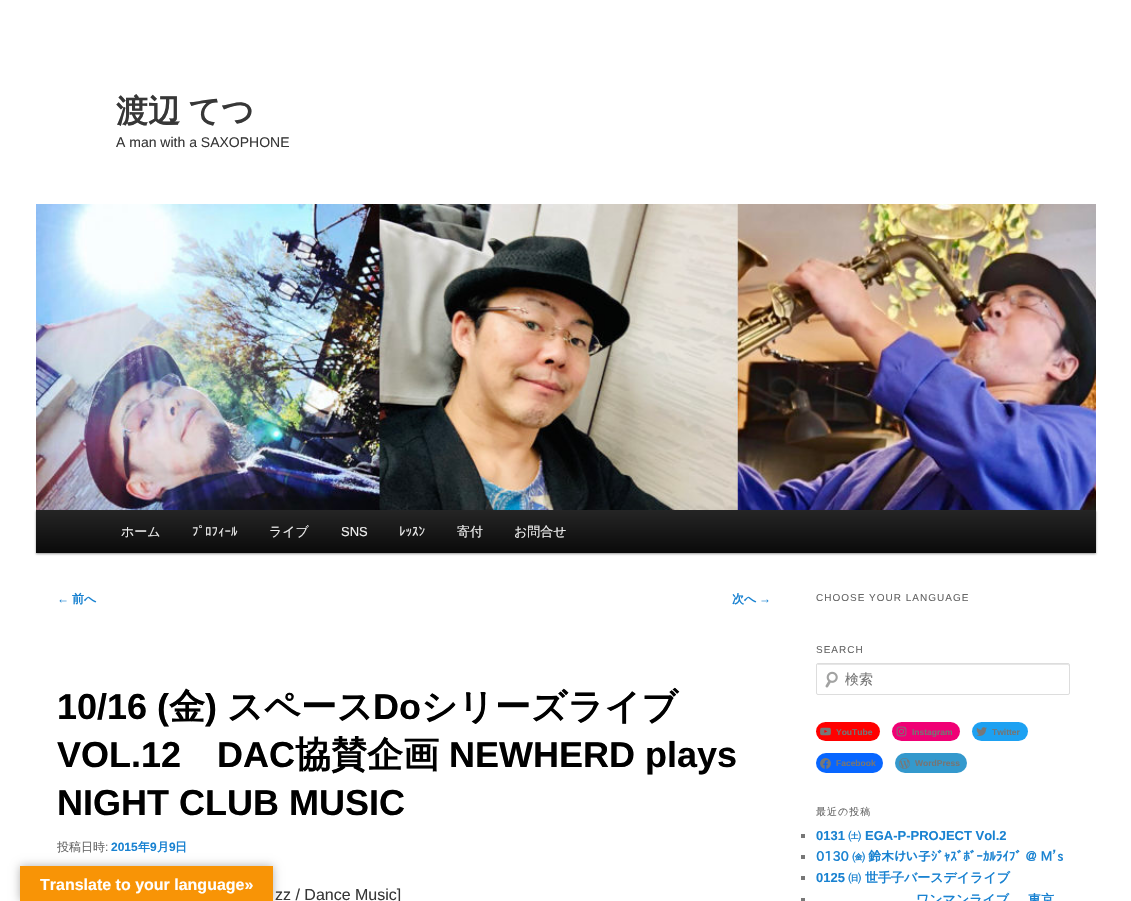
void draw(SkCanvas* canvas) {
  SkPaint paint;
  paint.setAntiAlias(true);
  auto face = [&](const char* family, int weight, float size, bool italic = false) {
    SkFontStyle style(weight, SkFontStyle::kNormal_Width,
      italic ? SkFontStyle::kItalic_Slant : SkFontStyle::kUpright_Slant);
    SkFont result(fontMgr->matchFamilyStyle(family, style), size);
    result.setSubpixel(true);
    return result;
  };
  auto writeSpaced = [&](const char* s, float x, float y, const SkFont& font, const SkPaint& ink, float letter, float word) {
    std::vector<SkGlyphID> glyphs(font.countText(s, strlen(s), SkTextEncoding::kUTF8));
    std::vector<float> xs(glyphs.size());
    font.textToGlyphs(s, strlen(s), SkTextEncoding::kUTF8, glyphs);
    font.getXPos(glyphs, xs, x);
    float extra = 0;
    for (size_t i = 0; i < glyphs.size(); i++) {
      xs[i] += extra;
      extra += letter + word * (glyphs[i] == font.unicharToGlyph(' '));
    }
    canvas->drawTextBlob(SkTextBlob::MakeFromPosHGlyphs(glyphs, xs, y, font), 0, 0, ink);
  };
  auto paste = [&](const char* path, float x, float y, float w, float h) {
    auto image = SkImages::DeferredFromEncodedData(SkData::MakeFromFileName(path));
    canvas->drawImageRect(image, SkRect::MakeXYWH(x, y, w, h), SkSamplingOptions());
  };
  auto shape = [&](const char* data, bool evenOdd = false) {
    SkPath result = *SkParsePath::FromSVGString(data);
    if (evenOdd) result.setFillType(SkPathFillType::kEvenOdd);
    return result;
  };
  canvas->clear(0xffffffff);
  paint.setColor(0x66000000);
  paint.setMaskFilter(SkMaskFilter::MakeBlur(kNormal_SkBlurStyle, 1));
  canvas->drawRect(SkRect::MakeXYWH(36, 511, 1060, 43), paint);
  paint.setMaskFilter(nullptr);
  paste("img/1.png", 36, 204, 1060, 306);
  {
    const SkColor colors[] = {0xff252525, 0xff0a0a0a};
    const float stops[] = {0, 1};
    const SkPoint ends[] = {{566, 510}, {566, 553}};
    paint.setShader(SkGradientShader::MakeLinear(ends, colors, stops, 2, SkTileMode::kClamp));
    paint.setAlpha(255);
  }
  canvas->drawRect(SkRect::MakeXYWH(36, 510, 1060, 43), paint);
  paste("img/2.png", 825, 671, 13, 17);
  paint.setShader(nullptr);
  paint.setColor(0xffe6e6e6);
  canvas->drawPath(shape("M818 664L817 665H1068L1069 666C1069 665 1069 664 1068 664Z"), paint);
  paint.setStroke(true);
  paint.setStrokeWidth(1);
  paint.setColor(0xffdddddd);
  canvas->drawRoundRect(SkRect::MakeXYWH(816.5f, 663.5f, 253, 31), 1.5f, 1.5f, paint);
  paint.setStroke(false);
  paint.setColor(0xffff0000);
  canvas->drawRoundRect(SkRect::MakeXYWH(816, 722, 64, 19), 9.5f, 9.5f, paint);
  paste("img/3.png", 820, 727, 11, 9);
  paint.setColor(0xfff00075);
  canvas->drawRoundRect(SkRect::MakeXYWH(892, 722, 68, 19), 9.5f, 9.5f, paint);
  paste("img/4.png", 896, 726, 11, 11);
  paint.setColor(0xff1da1f2);
  canvas->drawRoundRect(SkRect::MakeXYWH(972, 722, 56, 19), 9.5f, 9.5f, paint);
  paste("img/5.png", 976, 727, 11, 9);
  paint.setColor(0xff0866ff);
  canvas->drawRoundRect(SkRect::MakeXYWH(816, 753, 67, 20), 10, 10, paint);
  paste("img/6.png", 820, 758, 11, 11);
  paint.setColor(0xff3499cd);
  canvas->drawRoundRect(SkRect::MakeXYWH(895, 753, 72, 20), 10, 10, paint);
  paste("img/7.png", 899, 758, 11, 11);
  {
    const struct { float x, y, w, h; SkColor color; } items[] = {
      {801, 834, 4, 4, 0xff777777},
      {801, 855, 4, 4, 0xff777777},
      {801, 876, 4, 4, 0xff777777},
      {801, 898, 4, 3, 0xff777777},
    };
    for (auto [x, y, w, h, color] : items) {
      paint.setColor(color);
      canvas->drawRect(SkRect::MakeXYWH(x, y, w, h), paint);
    }
  }
  paint.setColor(0x4d000000);
  paint.setMaskFilter(SkMaskFilter::MakeBlur(kNormal_SkBlurStyle, 4.5f));
  canvas->drawRect(SkRect::MakeXYWH(20, 866, 253, 35), paint);
  paint.setMaskFilter(nullptr);
  paint.setColor(0xfff89406);
  canvas->drawRect(SkRect::MakeXYWH(20, 866, 253, 35), paint);
  auto f0 = face("WenQuanYi Zen Hei", 700, 32);
  paint.setColor(0xff373737);
  writeSpaced("渡辺 てつ", 116, 122, f0, paint, 0, -1);
  auto f1 = face("Liberation Sans", 400, 14);
  canvas->drawString("A man with a SAXOPHONE", 116, 147, f1, paint);
  auto f2 = face("WenQuanYi Zen Hei", 500, 13);
  paint.setColor(0xffeeeeee);
  canvas->drawString("ホーム", 121, 536, f2, paint);
  auto f3 = face("IPAPGothic", 400, 13);
  canvas->drawString("ﾌﾟﾛﾌｨｰﾙ", 192, 536, f3, paint);
  canvas->drawString("ライブ", 269, 536, f2, paint);
  auto f4 = face("Liberation Sans", 400, 13);
  canvas->drawString("SNS", 341, 536, f4, paint);
  canvas->drawString("ﾚｯｽﾝ", 399, 536, f3, paint);
  canvas->drawString("寄付", 457, 536, f2, paint);
  canvas->drawString("お問合せ", 514, 536, f2, paint);
  auto f5 = face("Liberation Sans", 400, 12);
  paint.setColor(0xff1982d1);
  canvas->drawString("←", 57, 603, f5, paint);
  auto f6 = face("WenQuanYi Zen Hei", 700, 12);
  canvas->drawString("前へ", 72, 603, f6, paint);
  canvas->drawString("次へ", 732, 603, f6, paint);
  canvas->drawString("→", 759, 603, f5, paint);
  auto f7 = face("Liberation Sans", 700, 36);
  paint.setColor(0xff000000);
  canvas->drawString("10/16 (", 57, 719, f7, paint);
  auto f8 = face("WenQuanYi Zen Hei", 700, 36);
  canvas->drawString("金", 169, 719, f8, paint);
  canvas->drawString(")", 205, 719, f7, paint);
  canvas->drawString("スペース", 227, 719, f8, paint);
  canvas->drawString("Do", 373, 719, f7, paint);
  canvas->drawString("シリーズライブ", 421, 719, f8, paint);
  canvas->drawString("VOL.12", 57, 767, f7, paint);
  canvas->drawString("DAC", 217, 767, f7, paint);
  canvas->drawString("協賛企画", 295, 767, f8, paint);
  canvas->drawString("NEWHERD plays", 449, 767, f7, paint);
  canvas->drawString("NIGHT CLUB MUSIC", 57, 815, f7, paint);
  auto f9 = face("WenQuanYi Zen Hei", 500, 12);
  paint.setColor(0xff666666);
  canvas->drawString("投稿日時", 57, 851, f9, paint);
  canvas->drawString(":", 105, 851, f5, paint);
  auto f10 = face("Liberation Sans", 700, 12);
  paint.setColor(0xff1982d1);
  canvas->drawString("2015", 111, 851, f10, paint);
  canvas->drawString("年", 138, 851, f6, paint);
  canvas->drawString("9", 150, 851, f10, paint);
  canvas->drawString("月", 157, 851, f6, paint);
  canvas->drawString("9", 169, 851, f10, paint);
  canvas->drawString("日", 175, 851, f6, paint);
  auto f11 = face("Liberation Sans", 400, 16);
  paint.setColor(0xff373737);
  canvas->drawString("zz / Dance Music]", 275, 900, f11, paint);
  auto f12 = face("Liberation Sans", 400, 10);
  paint.setColor(0xff666666);
  writeSpaced("CHOOSE YOUR LANGUAGE", 816, 601, f12, paint, 1, 0);
  writeSpaced("SEARCH", 816, 653, f12, paint, 1, 0);
  auto f13 = face("WenQuanYi Zen Hei", 500, 14);
  paint.setColor(0xff757575);
  canvas->drawString("検索", 845, 684, f13, paint);
  auto f14 = face("Liberation Sans", 700, 8.5f);
  {
    const struct { const char* s; float x, y; } items[] = {
      {"YouTube", 836, 735},
      {"Instagram", 912, 735},
      {"Twitter", 992, 735},
      {"Facebook", 836, 766},
      {"WordPress", 915, 766},
    };
    for (auto [s, x, y] : items) {
      canvas->drawString(s, x, y, f14, paint);
    }
  }
  auto f15 = face("WenQuanYi Zen Hei", 500, 10);
  paint.setColor(0xff666666);
  writeSpaced("最近の投稿", 816, 815, f15, paint, 1, 0);
  auto f16 = face("Liberation Sans", 700, 13);
  paint.setColor(0xff1982d1);
  canvas->drawString("0131", 816, 840, f16, paint);
  auto f17 = face("WenQuanYi Zen Hei", 700, 13);
  canvas->drawString("㈯", 848, 840, f17, paint);
  canvas->drawString("EGA-P-PROJECT Vol.2", 865, 840, f16, paint);
  auto f18 = face("IPAPGothic", 700, 13);
  canvas->drawString("0130", 816, 861, f18, paint);
  canvas->drawString("㈮", 852, 861, f17, paint);
  canvas->drawString("鈴木けい子ｼﾞｬｽﾞﾎﾞｰｶﾙﾗｲﾌﾞ @ M’s", 868, 861, f18, paint);
  canvas->drawString("0125", 816, 882, f16, paint);
  {
    const struct { const char* s; float x, y; } items[] = {
      {"㈰ 世手子バースデイライブ", 848, 882},
      {"ワンマンライブ", 916, 904},
      {"東京", 1028, 904},
    };
    for (auto [s, x, y] : items) {
      canvas->drawString(s, x, y, f17, paint);
    }
  }
  auto f19 = face("Liberation Sans", 700, 16);
  paint.setColor(0xffffffff);
  canvas->drawString("Translate to your language»", 40, 890, f19, paint);
}
